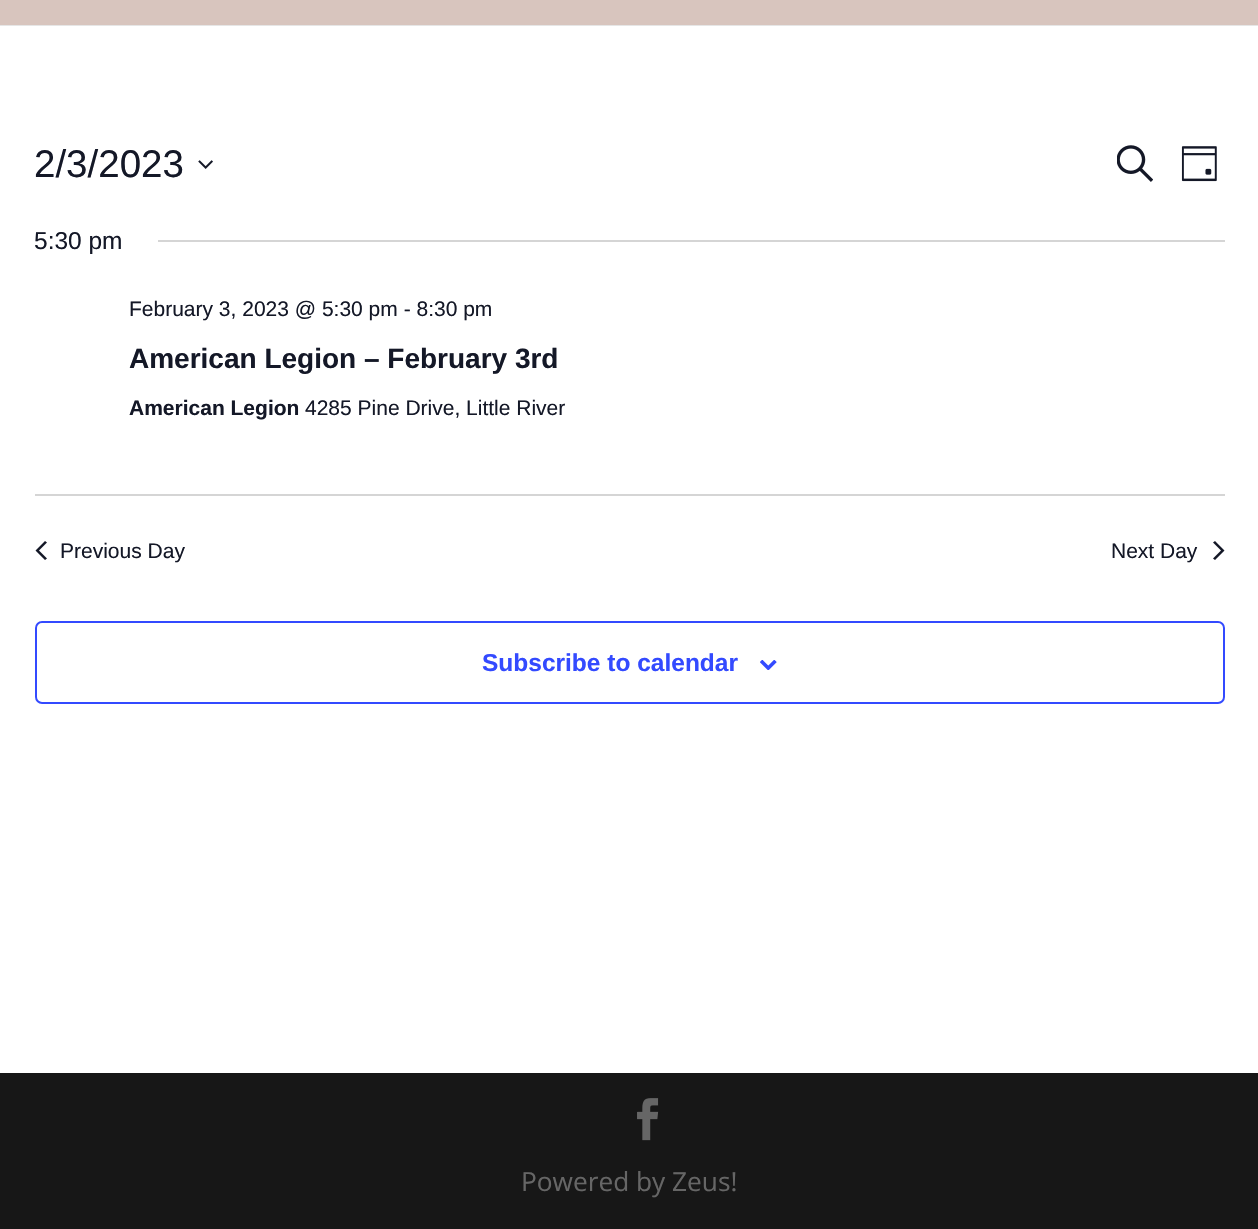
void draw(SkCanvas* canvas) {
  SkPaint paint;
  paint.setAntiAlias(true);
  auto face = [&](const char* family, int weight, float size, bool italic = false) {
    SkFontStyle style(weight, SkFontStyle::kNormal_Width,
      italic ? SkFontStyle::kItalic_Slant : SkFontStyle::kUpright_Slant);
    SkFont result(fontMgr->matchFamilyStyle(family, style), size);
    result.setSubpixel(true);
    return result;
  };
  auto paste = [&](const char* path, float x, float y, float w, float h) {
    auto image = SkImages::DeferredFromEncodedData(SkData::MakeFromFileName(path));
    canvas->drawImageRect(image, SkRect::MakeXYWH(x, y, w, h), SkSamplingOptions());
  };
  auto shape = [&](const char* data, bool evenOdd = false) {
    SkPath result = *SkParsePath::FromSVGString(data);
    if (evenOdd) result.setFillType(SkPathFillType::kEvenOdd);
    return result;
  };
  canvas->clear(0xffffffff);
  paint.setColor(0xffe6e6e6);
  canvas->drawRect(SkRect::MakeXYWH(0, 25, 1258, 1), paint);
  paint.setColor(0xffd8c5be);
  canvas->drawRect(SkRect::MakeXYWH(0, 0, 1258, 25), paint);
  paste("img/1.png", 198, 160, 15, 9);
  paste("img/2.png", 1117, 145, 36, 37);
  paste("img/3.png", 1181, 146, 36, 36);
  paint.setColor(0xffd5d5d5);
  canvas->drawRect(SkRect::MakeXYWH(158, 240, 1067, 2), paint);
  canvas->drawRect(SkRect::MakeXYWH(35, 494, 1190, 2), paint);
  paint.setColor(0xff141827);
  canvas->drawPath(shape("M47 558.5L45 560L35.5 550.5L45 541L47 542.5L39 550.5Z"), paint);
  canvas->drawPath(shape("M1213 542.5L1215 541L1224.5 550.5L1215 560L1213 558.5L1221 550.5Z"), paint);
  paint.setStroke(true);
  paint.setStrokeWidth(2);
  paint.setColor(0xff334aff);
  canvas->drawRoundRect(SkRect::MakeXYWH(36, 622, 1188, 81), 6, 6, paint);
  paste("img/4.png", 760, 660, 17, 10);
  paint.setStroke(false);
  paint.setColor(0xff171717);
  canvas->drawRect(SkRect::MakeXYWH(0, 1073, 1258, 156), paint);
  paste("img/5.png", 637, 1098, 22, 43);
  auto f0 = face("Liberation Sans", 400, 38.5f);
  paint.setColor(0xff141827);
  canvas->drawString("2/3/2023", 34, 177, f0, paint);
  auto f1 = face("Liberation Sans", 400, 24.5f);
  canvas->drawString("5:30 pm", 34, 249, f1, paint);
  auto f2 = face("Liberation Sans", 400, 21);
  canvas->drawString("February 3, 2023 @ 5:30 pm - 8:30 pm", 129, 316, f2, paint);
  auto f3 = face("Liberation Sans", 700, 28);
  canvas->drawString("American Legion – February 3rd", 129, 368, f3, paint);
  auto f4 = face("Liberation Sans", 700, 21);
  canvas->drawString("American Legion", 129, 415, f4, paint);
  {
    const struct { const char* s; float x, y; } items[] = {
      {"4285 Pine Drive, Little River", 305, 415},
      {"Previous Day", 60, 558},
      {"Next Day", 1111, 558},
    };
    for (auto [s, x, y] : items) {
      canvas->drawString(s, x, y, f2, paint);
    }
  }
  auto f5 = face("Liberation Sans", 700, 24.5f);
  paint.setColor(0xff334aff);
  canvas->drawString("Subscribe to calendar", 482, 671, f5, paint);
  auto f6 = face("Open Sans", 400, 26.25f);
  paint.setColor(0xff666666);
  canvas->drawString("Powered by Zeus!", 521, 1191, f6, paint);
}
